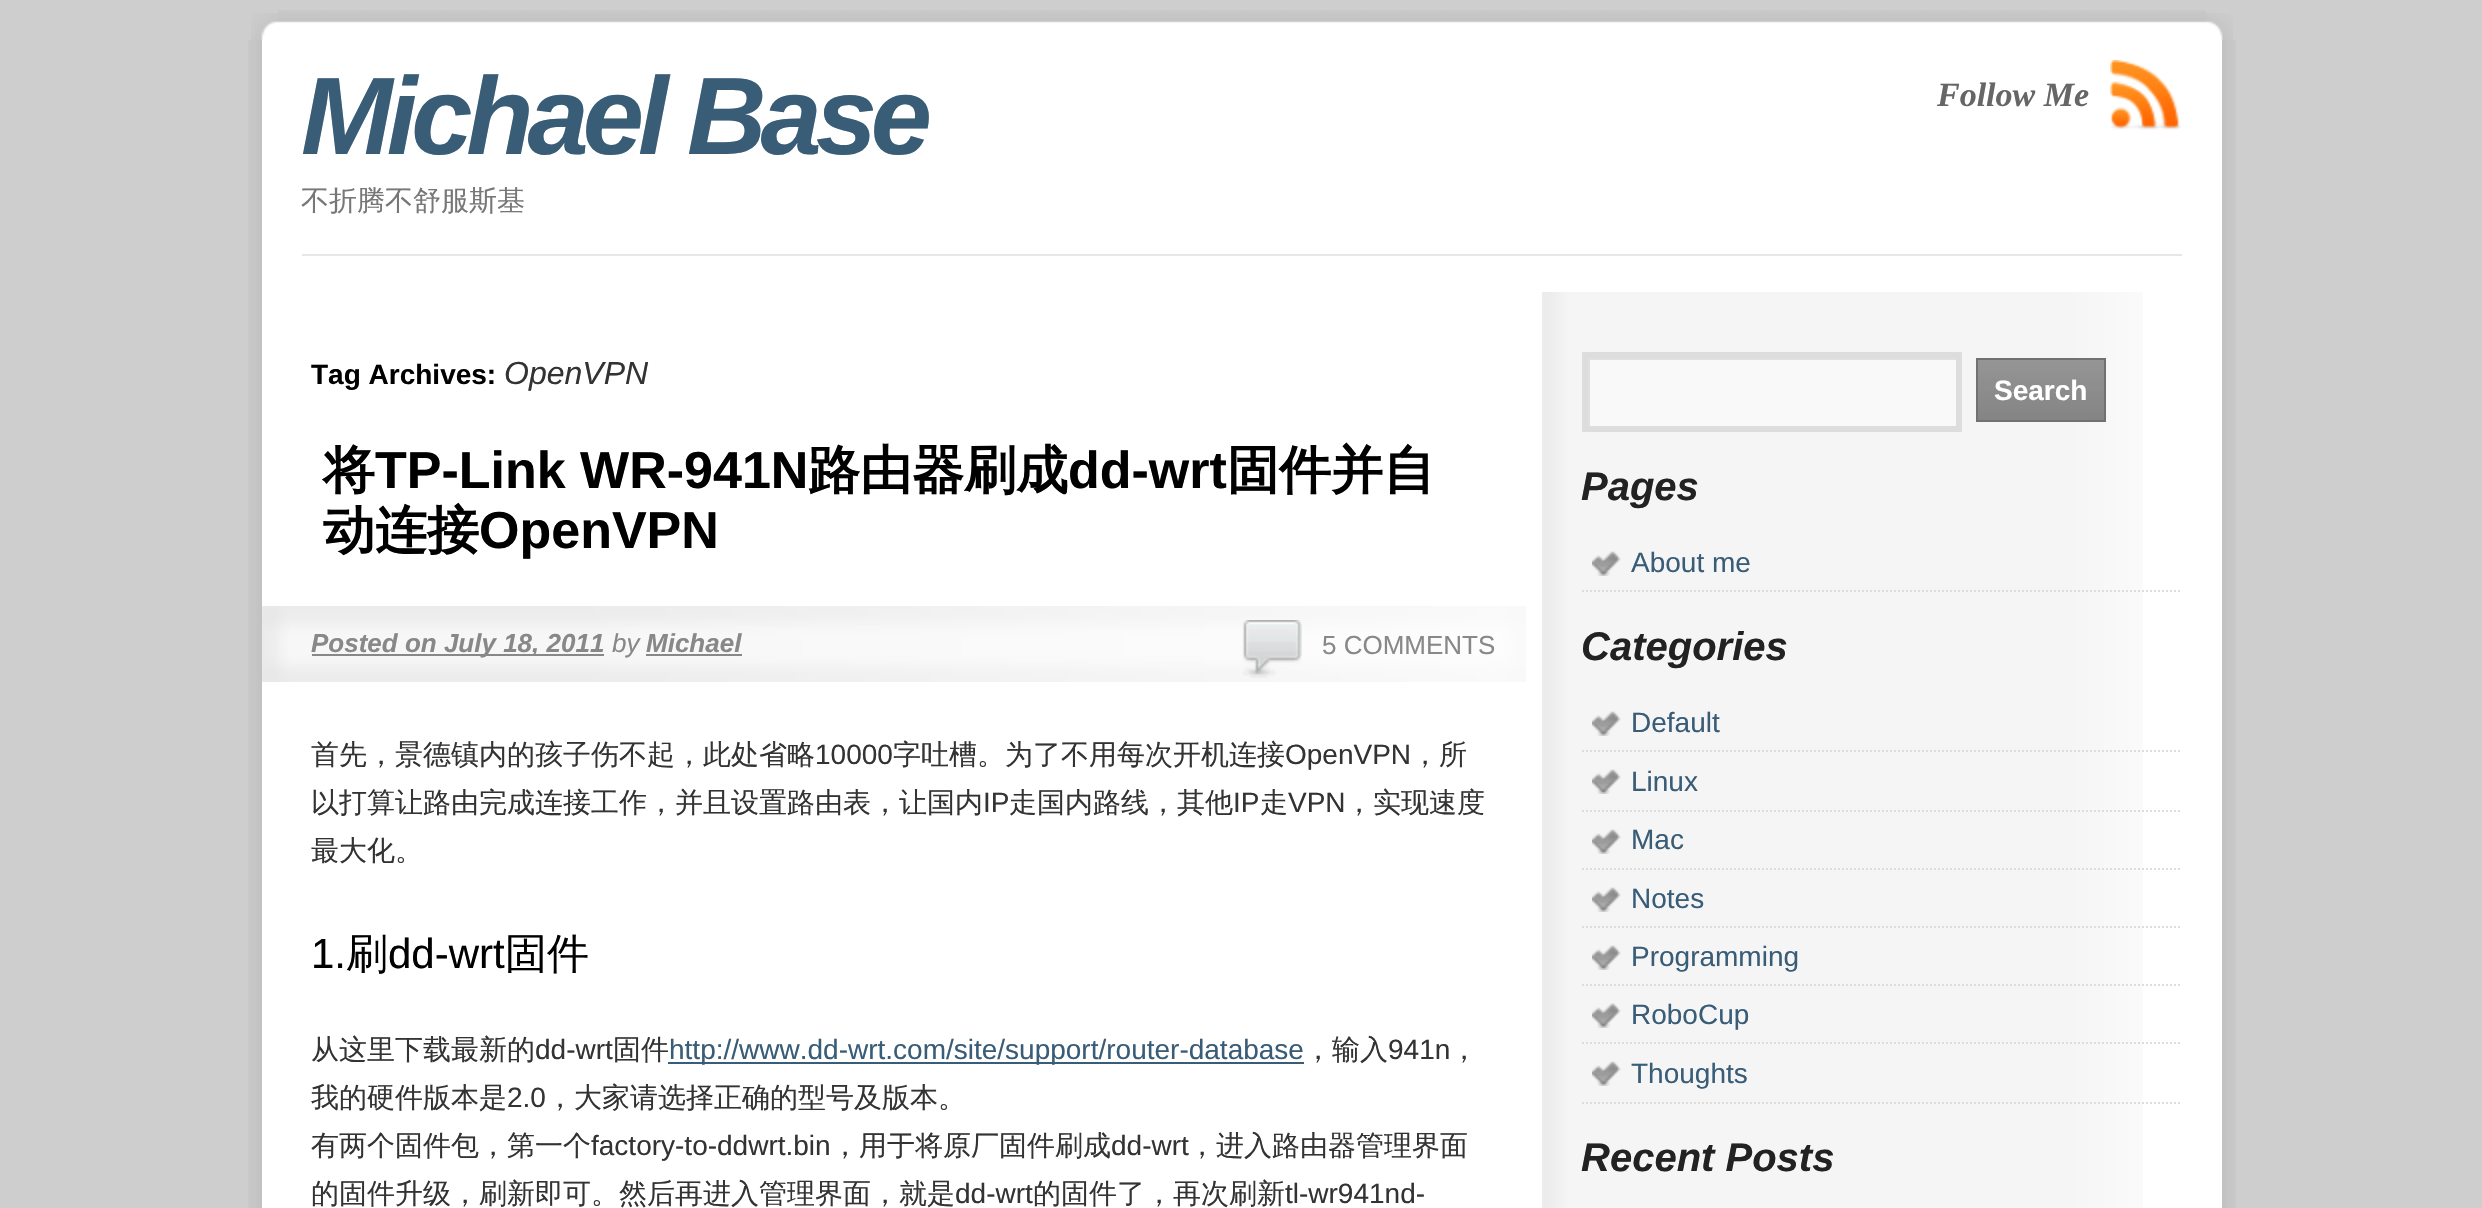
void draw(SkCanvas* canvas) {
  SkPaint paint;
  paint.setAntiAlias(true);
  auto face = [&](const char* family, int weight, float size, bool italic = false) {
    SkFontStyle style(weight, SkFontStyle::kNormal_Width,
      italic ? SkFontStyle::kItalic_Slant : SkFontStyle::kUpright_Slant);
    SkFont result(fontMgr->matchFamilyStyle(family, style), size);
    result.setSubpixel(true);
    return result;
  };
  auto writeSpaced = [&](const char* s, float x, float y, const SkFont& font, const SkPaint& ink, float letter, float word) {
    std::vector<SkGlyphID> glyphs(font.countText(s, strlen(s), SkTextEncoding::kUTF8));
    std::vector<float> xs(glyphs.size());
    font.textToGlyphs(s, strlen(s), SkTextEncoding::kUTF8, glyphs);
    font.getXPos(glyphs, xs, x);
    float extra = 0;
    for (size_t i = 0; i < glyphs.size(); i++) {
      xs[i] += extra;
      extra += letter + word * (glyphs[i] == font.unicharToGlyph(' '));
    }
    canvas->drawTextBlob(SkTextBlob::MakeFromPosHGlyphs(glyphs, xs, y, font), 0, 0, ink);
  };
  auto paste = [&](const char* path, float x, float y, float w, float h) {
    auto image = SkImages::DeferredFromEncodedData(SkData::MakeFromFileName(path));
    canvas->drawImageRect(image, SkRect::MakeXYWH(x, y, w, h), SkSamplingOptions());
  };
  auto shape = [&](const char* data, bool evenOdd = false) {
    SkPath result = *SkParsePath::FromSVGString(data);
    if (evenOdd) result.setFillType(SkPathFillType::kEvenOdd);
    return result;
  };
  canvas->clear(0xffcfcecf);
  paint.setColor(0xffffffff);
  canvas->drawRect(SkRect::MakeXYWH(262, 40, 1960, 1168), paint);
  paste("img/1.png", 251, 13, 27, 27);
  paste("img/2.png", 278, 10, 1928, 30);
  paste("img/3.png", 2206, 13, 27, 27);
  paste("img/4.png", 248, 40, 14, 1168);
  paste("img/5.png", 2110, 60, 71, 70);
  paint.setColor(0xffe7e7e7);
  canvas->drawRect(SkRect::MakeXYWH(302, 254, 1880, 2), paint);
  paste("img/6.png", 2222, 40, 14, 1168);
  paste("img/7.png", 1542, 292, 601, 916);
  paste("img/8.png", 262, 606, 1264, 76);
  paint.setColor(0xff888888);
  canvas->drawRect(SkRect::MakeXYWH(312, 654, 292, 2), paint);
  canvas->drawRect(SkRect::MakeXYWH(646, 654, 96, 2), paint);
  paste("img/9.png", 1242, 620, 60, 58);
  paint.setColor(0xff395c77);
  canvas->drawRect(SkRect::MakeXYWH(668, 1062, 636, 2), paint);
  paint.setColor(0xfff9f9f9);
  canvas->drawRect(SkRect::MakeXYWH(1590, 360, 366, 66), paint);
  canvas->save();
  canvas->clipRect(SkRect::MakeXYWH(1588, 358, 368, 68));
  paint.setColor(0xffe0e0e0);
  canvas->drawPath(shape("M1390 160H2154V624H1390ZM1590 360H1958V428H1590Z", true), paint);
  canvas->restore();
  paint.setStroke(true);
  paint.setStrokeWidth(6);
  paint.setColor(0xffdddddd);
  canvas->drawRect(SkRect::MakeXYWH(1585, 355, 374, 74), paint);
  paste("img/10.png", 1978, 360, 126, 60);
  paint.setStrokeWidth(2);
  paint.setColor(0xff717171);
  canvas->drawRect(SkRect::MakeXYWH(1977, 359, 128, 62), paint);
  paste("img/11.png", 1592, 551, 29, 25);
  paint.setColor(0xffdddddd);
  paint.setPathEffect(SkDashPathEffect::Make({{2, 2}}, 0));
  canvas->drawPath(shape("M1582 591H2182"), paint);
  paint.setPathEffect(nullptr);
  paste("img/11.png", 1592, 711, 29, 25);
  paint.setPathEffect(SkDashPathEffect::Make({{2, 2}}, 0));
  canvas->drawPath(shape("M1582 751H2182"), paint);
  paint.setPathEffect(nullptr);
  paste("img/11.png", 1592, 769, 29, 25);
  paint.setPathEffect(SkDashPathEffect::Make({{2, 2}}, 0));
  canvas->drawPath(shape("M1582 811H2182"), paint);
  paint.setPathEffect(nullptr);
  paste("img/11.png", 1592, 829, 29, 25);
  paint.setPathEffect(SkDashPathEffect::Make({{2, 2}}, 0));
  canvas->drawPath(shape("M1582 869H2182"), paint);
  paint.setPathEffect(nullptr);
  paste("img/11.png", 1592, 887, 29, 25);
  paint.setPathEffect(SkDashPathEffect::Make({{2, 2}}, 0));
  canvas->drawPath(shape("M1582 927H2182"), paint);
  paint.setPathEffect(nullptr);
  paste("img/11.png", 1592, 945, 29, 25);
  paint.setPathEffect(SkDashPathEffect::Make({{2, 2}}, 0));
  canvas->drawPath(shape("M1582 985H2182"), paint);
  paint.setPathEffect(nullptr);
  paste("img/11.png", 1592, 1003, 29, 25);
  paint.setPathEffect(SkDashPathEffect::Make({{2, 2}}, 0));
  canvas->drawPath(shape("M1582 1043H2182"), paint);
  paint.setPathEffect(nullptr);
  paste("img/11.png", 1592, 1061, 29, 25);
  paint.setPathEffect(SkDashPathEffect::Make({{2, 2}}, 0));
  canvas->drawPath(shape("M1582 1103H2182"), paint);
  paint.setPathEffect(nullptr);
  auto f0 = face("Liberation Sans", 700, 110, true);
  paint.setStroke(false);
  paint.setColor(0xff395c77);
  writeSpaced("Michael Base", 301, 154, f0, paint, -6, 0);
  auto f1 = face("Liberation Serif", 700, 34, true);
  paint.setColor(0xff666666);
  canvas->drawString("Follow Me", 1937, 106, f1, paint);
  auto f2 = face("WenQuanYi Zen Hei", 500, 28);
  paint.setColor(0xff777777);
  canvas->drawString("不折腾不舒服斯基", 301, 210, f2, paint);
  auto f3 = face("Liberation Sans", 700, 28);
  paint.setColor(0xff000000);
  canvas->drawString("Tag Archives:", 311, 384, f3, paint);
  auto f4 = face("Liberation Sans", 400, 32, true);
  paint.setColor(0xff333333);
  canvas->drawString("OpenVPN", 504, 384, f4, paint);
  auto f5 = face("WenQuanYi Zen Hei", 700, 52);
  paint.setColor(0xff000000);
  canvas->drawString("将", 323, 488, f5, paint);
  auto f6 = face("Liberation Sans", 700, 52);
  canvas->drawString("TP-Link WR-941N", 375, 488, f6, paint);
  canvas->drawString("路由器刷成", 808, 488, f5, paint);
  canvas->drawString("dd-wrt", 1068, 488, f6, paint);
  canvas->drawString("固件并自", 1227, 488, f5, paint);
  canvas->drawString("动连接", 323, 548, f5, paint);
  canvas->drawString("OpenVPN", 479, 548, f6, paint);
  auto f7 = face("Liberation Sans", 700, 26, true);
  paint.setColor(0xff888888);
  canvas->drawString("Posted on July 18, 2011", 311, 652, f7, paint);
  auto f8 = face("Liberation Sans", 400, 26, true);
  canvas->drawString("by", 612, 652, f8, paint);
  canvas->drawString("Michael", 646, 652, f7, paint);
  auto f9 = face("Liberation Sans", 400, 26);
  canvas->drawString("5 COMMENTS", 1322, 654, f9, paint);
  paint.setColor(0xff333333);
  canvas->drawString("首先，景德镇内的孩子伤不起，此处省略", 311, 764, f2, paint);
  auto f10 = face("Liberation Sans", 400, 28);
  canvas->drawString("10000", 815, 764, f10, paint);
  canvas->drawString("字吐槽。为了不用每次开机连接", 893, 764, f2, paint);
  canvas->drawString("OpenVPN", 1285, 764, f10, paint);
  canvas->drawString("，所", 1411, 764, f2, paint);
  canvas->drawString("以打算让路由完成连接工作，并且设置路由表，让国内", 311, 812, f2, paint);
  canvas->drawString("IP", 983, 812, f10, paint);
  canvas->drawString("走国内路线，其他", 1009, 812, f2, paint);
  canvas->drawString("IP", 1233, 812, f10, paint);
  canvas->drawString("走", 1260, 812, f2, paint);
  canvas->drawString("VPN", 1288, 812, f10, paint);
  canvas->drawString("，实现速度", 1345, 812, f2, paint);
  canvas->drawString("最大化。", 311, 860, f2, paint);
  auto f11 = face("Liberation Sans", 400, 42);
  paint.setColor(0xff000000);
  canvas->drawString("1.", 311, 968, f11, paint);
  auto f12 = face("WenQuanYi Zen Hei", 500, 42);
  canvas->drawString("刷", 346, 968, f12, paint);
  canvas->drawString("dd-wrt", 388, 968, f11, paint);
  canvas->drawString("固件", 505, 968, f12, paint);
  paint.setColor(0xff333333);
  canvas->drawString("从这里下载最新的", 311, 1059, f2, paint);
  canvas->drawString("dd-wrt", 535, 1059, f10, paint);
  canvas->drawString("固件", 613, 1059, f2, paint);
  paint.setColor(0xff395c77);
  canvas->drawString("http://www.dd-wrt.com/site/support/router-database", 669, 1059, f10, paint);
  paint.setColor(0xff333333);
  canvas->drawString("，输入", 1304, 1059, f2, paint);
  canvas->drawString("941n", 1388, 1059, f10, paint);
  canvas->drawString("，", 1450, 1059, f2, paint);
  canvas->drawString("我的硬件版本是", 311, 1107, f2, paint);
  canvas->drawString("2.0", 507, 1107, f10, paint);
  canvas->drawString("，大家请选择正确的型号及版本。", 546, 1107, f2, paint);
  canvas->drawString("有两个固件包，第一个", 311, 1155, f2, paint);
  canvas->drawString("factory-to-ddwrt.bin", 591, 1155, f10, paint);
  canvas->drawString("，用于将原厂固件刷成", 831, 1155, f2, paint);
  canvas->drawString("dd-wrt", 1111, 1155, f10, paint);
  canvas->drawString("，进入路由器管理界面", 1188, 1155, f2, paint);
  canvas->drawString("的固件升级，刷新即可。然后再进入管理界面，就是", 311, 1203, f2, paint);
  canvas->drawString("dd-wrt", 955, 1203, f10, paint);
  canvas->drawString("的固件了，再次刷新", 1033, 1203, f2, paint);
  canvas->drawString("tl-wr941nd-", 1285, 1203, f10, paint);
  paint.setColor(0xffffffff);
  canvas->drawString("Search", 1994, 400, f3, paint);
  auto f13 = face("Liberation Sans", 700, 40, true);
  paint.setColor(0xff222222);
  canvas->drawString("Pages", 1581, 500, f13, paint);
  paint.setColor(0xff395c77);
  canvas->drawString("About me", 1631, 572, f10, paint);
  paint.setColor(0xff222222);
  canvas->drawString("Categories", 1581, 660, f13, paint);
  paint.setColor(0xff395c77);
  {
    const struct { const char* s; float x, y; } items[] = {
      {"Default", 1631, 732},
      {"Linux", 1631, 791},
      {"Mac", 1631, 849},
      {"Notes", 1631, 908},
      {"Programming", 1631, 966},
      {"RoboCup", 1631, 1024},
      {"Thoughts", 1631, 1083},
    };
    for (auto [s, x, y] : items) {
      canvas->drawString(s, x, y, f10, paint);
    }
  }
  paint.setColor(0xff222222);
  canvas->drawString("Recent Posts", 1581, 1171, f13, paint);
}
